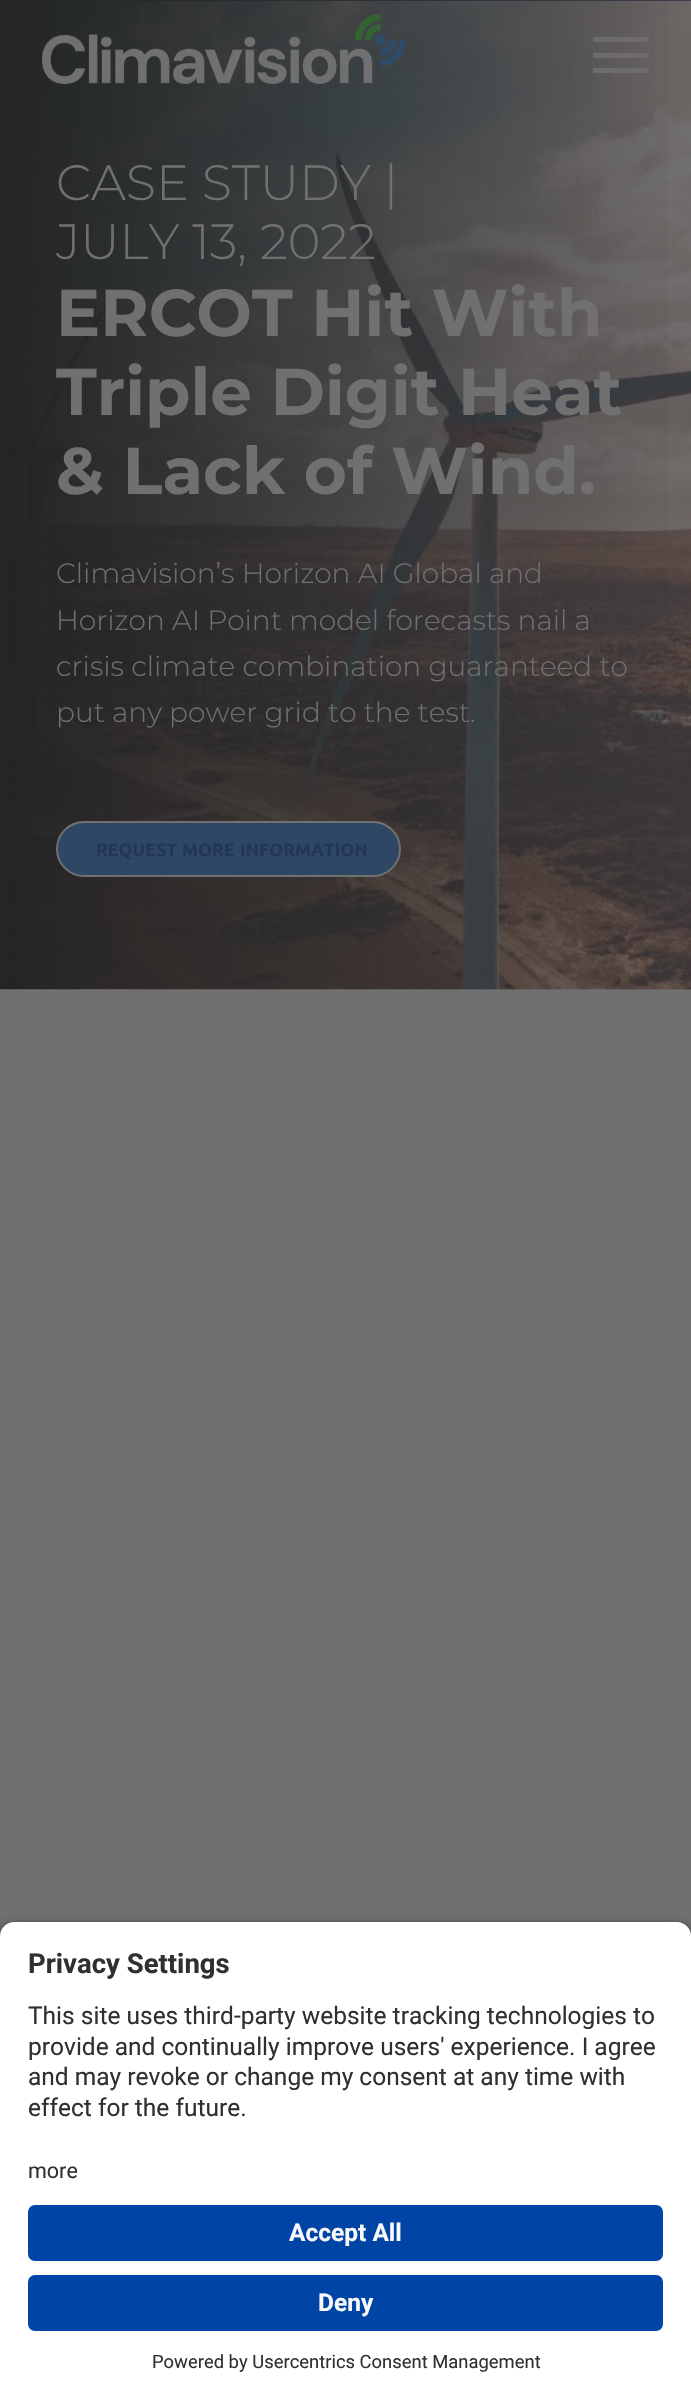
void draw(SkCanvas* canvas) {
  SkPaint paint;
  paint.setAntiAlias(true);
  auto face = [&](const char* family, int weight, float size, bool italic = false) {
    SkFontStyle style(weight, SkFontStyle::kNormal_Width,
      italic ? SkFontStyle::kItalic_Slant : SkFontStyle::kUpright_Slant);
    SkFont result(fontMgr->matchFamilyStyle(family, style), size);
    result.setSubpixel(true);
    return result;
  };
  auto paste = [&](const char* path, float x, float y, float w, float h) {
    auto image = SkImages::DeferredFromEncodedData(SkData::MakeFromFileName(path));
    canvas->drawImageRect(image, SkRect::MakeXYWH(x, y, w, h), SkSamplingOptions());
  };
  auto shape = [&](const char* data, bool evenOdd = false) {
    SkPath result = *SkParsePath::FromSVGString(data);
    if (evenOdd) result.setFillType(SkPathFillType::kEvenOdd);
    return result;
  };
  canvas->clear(0xff707070);
  {
    const SkColor colors[] = {0xff272b32, 0xff242e42};
    const float stops[] = {0, 1};
    const SkPoint ends[] = {{0, 494}, {691, 494}};
    paint.setShader(SkGradientShader::MakeLinear(ends, colors, stops, 2, SkTileMode::kClamp));
    paint.setAlpha(255);
  }
  canvas->drawRect(SkRect::MakeXYWH(4, 0, 687, 1), paint);
  paste("img/2.png", 0, 0, 691, 990);
  {
    const SkColor colors[] = {0xff242424, 0x00242424};
    const float stops[] = {0, 1};
    const SkPoint ends[] = {{0, 494}, {691, 494}};
    paint.setShader(SkGradientShader::MakeLinear(ends, colors, stops, 2, SkTileMode::kClamp));
    paint.setAlpha(255);
  }
  canvas->drawRect(SkRect::MakeXYWH(0, 0, 668, 989), paint);
  paste("img/1.png", 42, 14, 364, 70);
  paint.setShader(nullptr);
  {
    const struct { float x, y, w, h; SkColor color; } items[] = {
      {593, 37, 56, 5, 0xff6c6c6c},
      {593, 53, 56, 5, 0xff6c6c6c},
      {593, 68, 56, 5, 0xff6c6c6c},
    };
    for (auto [x, y, w, h, color] : items) {
      paint.setColor(color);
      canvas->drawRect(SkRect::MakeXYWH(x, y, w, h), paint);
    }
  }
  paint.setColor(0xff2d4765);
  canvas->drawRoundRect(SkRect::MakeXYWH(57, 822, 343, 54), 27, 27, paint);
  paint.setStroke(true);
  paint.setStrokeWidth(2);
  paint.setColor(0xff707070);
  canvas->drawRoundRect(SkRect::MakeXYWH(57, 822, 343, 54), 27, 27, paint);
  paint.setStroke(false);
  paint.setColor(0xcc000000);
  paint.setMaskFilter(SkMaskFilter::MakeBlur(kNormal_SkBlurStyle, 6));
  canvas->drawRoundRect(SkRect::MakeXYWH(0, 1927, 691, 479), 14, 14, paint);
  paint.setMaskFilter(nullptr);
  paint.setColor(0xffffffff);
  canvas->drawPath(shape("M14 1922H677C684.5 1922 691 1928.5 691 1936V2160H0V1936C0 1928.5 6.5 1922 14 1922Z"), paint);
  canvas->drawRect(SkRect::MakeXYWH(0, 2160, 691, 241), paint);
  paint.setColor(0xff0045a5);
  canvas->drawRoundRect(SkRect::MakeXYWH(28, 2205, 635, 56), 7, 7, paint);
  canvas->drawRoundRect(SkRect::MakeXYWH(28, 2275, 635, 56), 7, 7, paint);
  auto f0 = face("Montserrat", 300, 49.5f);
  paint.setColor(0xff707070);
  canvas->drawString("CASE STUDY |", 56, 200, f0, paint);
  canvas->drawString("JULY 13, 2022", 56, 259, f0, paint);
  auto f1 = face("Montserrat", 700, 65.9f);
  {
    const struct { const char* s; float x, y; } items[] = {
      {"ERCOT Hit With", 56, 336},
      {"Triple Digit Heat", 56, 415},
      {"& Lack of Wind.", 56, 494},
    };
    for (auto [s, x, y] : items) {
      canvas->drawString(s, x, y, f1, paint);
    }
  }
  auto f2 = face("Montserrat", 300, 28);
  {
    const struct { const char* s; float x, y; } items[] = {
      {"Climavision’s Horizon AI Global and", 56, 583},
      {"Horizon AI Point model forecasts nail a", 56, 630},
      {"crisis climate combination guaranteed to", 56, 676},
      {"put any power grid to the test.", 56, 722},
    };
    for (auto [s, x, y] : items) {
      canvas->drawString(s, x, y, f2, paint);
    }
  }
  auto f3 = face("Ubuntu", 700, 17.75f);
  paint.setColor(0xff243656);
  {
    const struct { const char* s; float x, y; } items[] = {
      {"REQUEST", 96, 856},
      {"MORE", 182, 856},
      {"INFORMATION", 240, 856},
    };
    for (auto [s, x, y] : items) {
      canvas->drawString(s, x, y, f3, paint);
    }
  }
  auto f4 = face("Roboto", 700, 27.5f);
  paint.setColor(0xff303030);
  canvas->drawString("Privacy Settings", 28, 1973, f4, paint);
  auto f5 = face("Roboto", 400, 24.5f);
  {
    const struct { const char* s; float x, y; } items[] = {
      {"This site uses third-party website tracking technologies to", 28, 2024},
      {"provide and continually improve users' experience. I agree", 28, 2055},
      {"and may revoke or change my consent at any time with", 28, 2085},
      {"effect for the future.", 28, 2116},
    };
    for (auto [s, x, y] : items) {
      canvas->drawString(s, x, y, f5, paint);
    }
  }
  auto f6 = face("Roboto", 400, 21.5f);
  canvas->drawString("more", 28, 2178, f6, paint);
  auto f7 = face("Roboto", 700, 24.5f);
  paint.setColor(0xfffafafa);
  canvas->drawString("Accept All", 289, 2241, f7, paint);
  canvas->drawString("Deny", 318, 2311, f7, paint);
  auto f8 = face("Roboto", 400, 18.4f);
  paint.setColor(0xff303030);
  canvas->drawString("Powered by Usercentrics Consent Management", 152, 2368, f8, paint);
}
